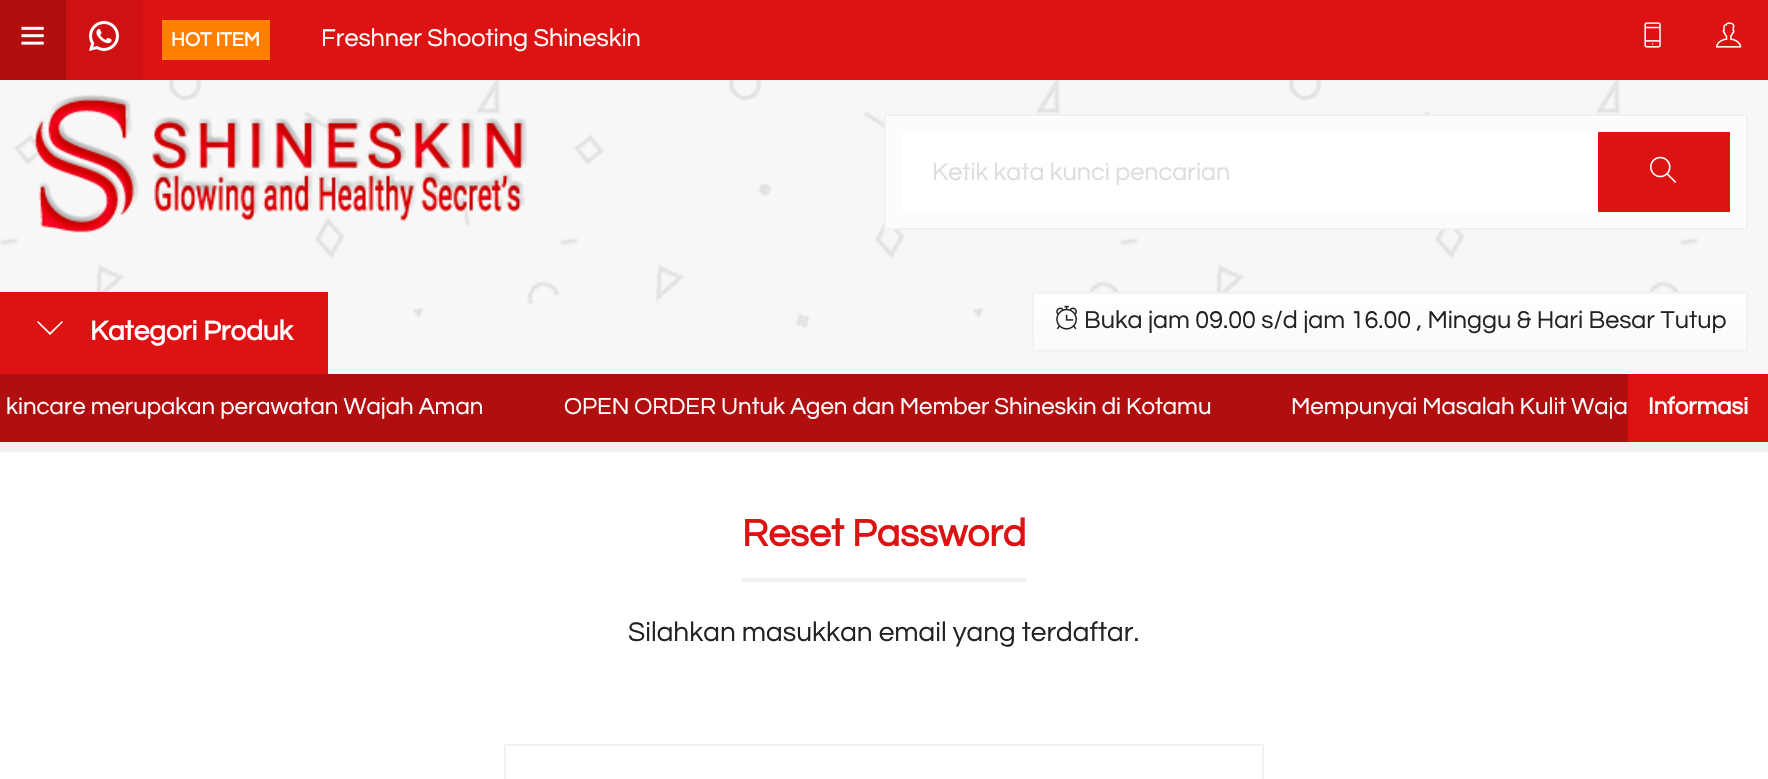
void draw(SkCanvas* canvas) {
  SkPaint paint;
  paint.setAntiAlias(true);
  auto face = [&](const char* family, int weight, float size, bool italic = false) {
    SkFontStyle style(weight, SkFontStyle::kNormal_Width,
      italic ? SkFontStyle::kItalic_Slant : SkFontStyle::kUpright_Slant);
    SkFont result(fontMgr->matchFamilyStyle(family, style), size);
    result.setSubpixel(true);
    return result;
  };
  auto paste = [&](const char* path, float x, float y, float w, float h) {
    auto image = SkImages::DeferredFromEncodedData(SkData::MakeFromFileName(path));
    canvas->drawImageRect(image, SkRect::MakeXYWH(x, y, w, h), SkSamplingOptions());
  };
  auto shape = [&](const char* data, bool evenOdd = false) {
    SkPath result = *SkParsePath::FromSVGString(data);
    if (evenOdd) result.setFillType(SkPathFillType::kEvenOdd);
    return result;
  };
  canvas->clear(0xfff7f7f7);
  paint.setColor(0xffdd1313);
  canvas->drawRect(SkRect::MakeXYWH(142, 0, 1626, 80), paint);
  paint.setColor(0xffb10f0f);
  canvas->drawRect(SkRect::MakeXYWH(0, 0, 66, 80), paint);
  paste("img/1.png", 21, 26, 23, 19);
  paint.setColor(0xffce1212);
  canvas->drawRect(SkRect::MakeXYWH(66, 0, 76, 80), paint);
  paste("img/2.png", 89, 21, 30, 30);
  paint.setColor(0xffff8000);
  canvas->drawRect(SkRect::MakeXYWH(162, 20, 108, 40), paint);
  paste("img/3.png", 1644, 22, 17, 26);
  paste("img/4.png", 1716, 22, 26, 26);
  paste("img/5.png", 0, 80, 1698, 249);
  paste("img/6.png", 34, 94, 493, 139);
  paint.setColor(0xfffcfcfc);
  canvas->drawRect(SkRect::MakeXYWH(885, 115, 862, 114), paint);
  paint.setStroke(true);
  paint.setStrokeWidth(2);
  paint.setColor(0xfff1f1f1);
  canvas->drawRect(SkRect::MakeXYWH(885, 115, 862, 114), paint);
  paint.setStroke(false);
  paint.setColor(0xffffffff);
  canvas->drawRect(SkRect::MakeXYWH(902, 132, 696, 80), paint);
  paint.setColor(0xffdd1313);
  canvas->drawRect(SkRect::MakeXYWH(1598, 132, 132, 80), paint);
  paste("img/7.png", 1650, 156, 27, 27);
  canvas->drawRect(SkRect::MakeXYWH(0, 292, 328, 82), paint);
  paint.setColor(0xffffffff);
  canvas->drawPath(shape("M63 322L50 335L37 322L38 321L50 332.5L62 321Z"), paint);
  {
    const SkColor colors[] = {0xfffafafa, 0xffffffff};
    const float stops[] = {0, 1};
    const SkPoint ends[] = {{1390, 350}, {1390, 294}};
    paint.setShader(SkGradientShader::MakeLinear(ends, colors, stops, 2, SkTileMode::kClamp));
    paint.setAlpha(255);
  }
  canvas->drawRect(SkRect::MakeXYWH(1034, 294, 712, 56), paint);
  paint.setStroke(true);
  paint.setShader(nullptr);
  paint.setColor(0xfff2f2f2);
  canvas->drawRect(SkRect::MakeXYWH(1033, 293, 714, 58), paint);
  paste("img/8.png", 1056, 305, 21, 25);
  paint.setStroke(false);
  {
    const struct { float x, y, w, h; SkColor color; } items[] = {
      {0, 374, 1628, 68, 0xffb10f0f},
      {1628, 374, 140, 68, 0xffdd1313},
      {0, 452, 1768, 327, 0xffffffff},
      {0, 442, 1768, 10, 0xfff1f1f1},
      {742, 578, 284, 4, 0xfff1f1f1},
    };
    for (auto [x, y, w, h, color] : items) {
      paint.setColor(color);
      canvas->drawRect(SkRect::MakeXYWH(x, y, w, h), paint);
    }
  }
  paint.setStroke(true);
  paint.setColor(0xfff2f2f2);
  canvas->drawRect(SkRect::MakeXYWH(505, 745, 758, 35), paint);
  auto f0 = face("Questrial", 700, 20);
  paint.setStroke(false);
  paint.setColor(0xffffffff);
  canvas->drawString("HOT ITEM", 171, 46, f0, paint);
  auto f1 = face("Questrial", 400, 25.2f);
  canvas->drawString("Freshner Shooting Shineskin", 321, 46, f1, paint);
  paint.setColor(0xffdddddd);
  canvas->drawString("Ketik kata kunci pencarian", 932, 180, f1, paint);
  auto f2 = face("Questrial", 700, 28);
  paint.setColor(0xffffffff);
  canvas->drawString("Kategori Produk", 90, 340, f2, paint);
  paint.setColor(0xff222222);
  canvas->drawString("Buka jam 09.00 s/d jam 16.00 , Minggu & Hari Besar Tutup", 1084, 328, f1, paint);
  auto f3 = face("Questrial", 400, 24);
  paint.setColor(0xffffffff);
  {
    const struct { const char* s; float x, y; } items[] = {
      {"kincare merupakan perawatan Wajah Aman", 6, 414},
      {"OPEN ORDER Untuk Agen dan Member Shineskin di Kotamu", 564, 414},
      {"Mempunyai Masalah Kulit Waja", 1291, 414},
    };
    for (auto [s, x, y] : items) {
      canvas->drawString(s, x, y, f3, paint);
    }
  }
  auto f4 = face("Questrial", 700, 24);
  canvas->drawString("Informasi", 1648, 414, f4, paint);
  auto f5 = face("Questrial", 700, 39.25f);
  paint.setColor(0xffdd1313);
  canvas->drawString("Reset Password", 742, 546, f5, paint);
  auto f6 = face("Questrial", 400, 28);
  paint.setColor(0xff222222);
  canvas->drawString("Silahkan masukkan email yang terdaftar.", 628, 641, f6, paint);
}
